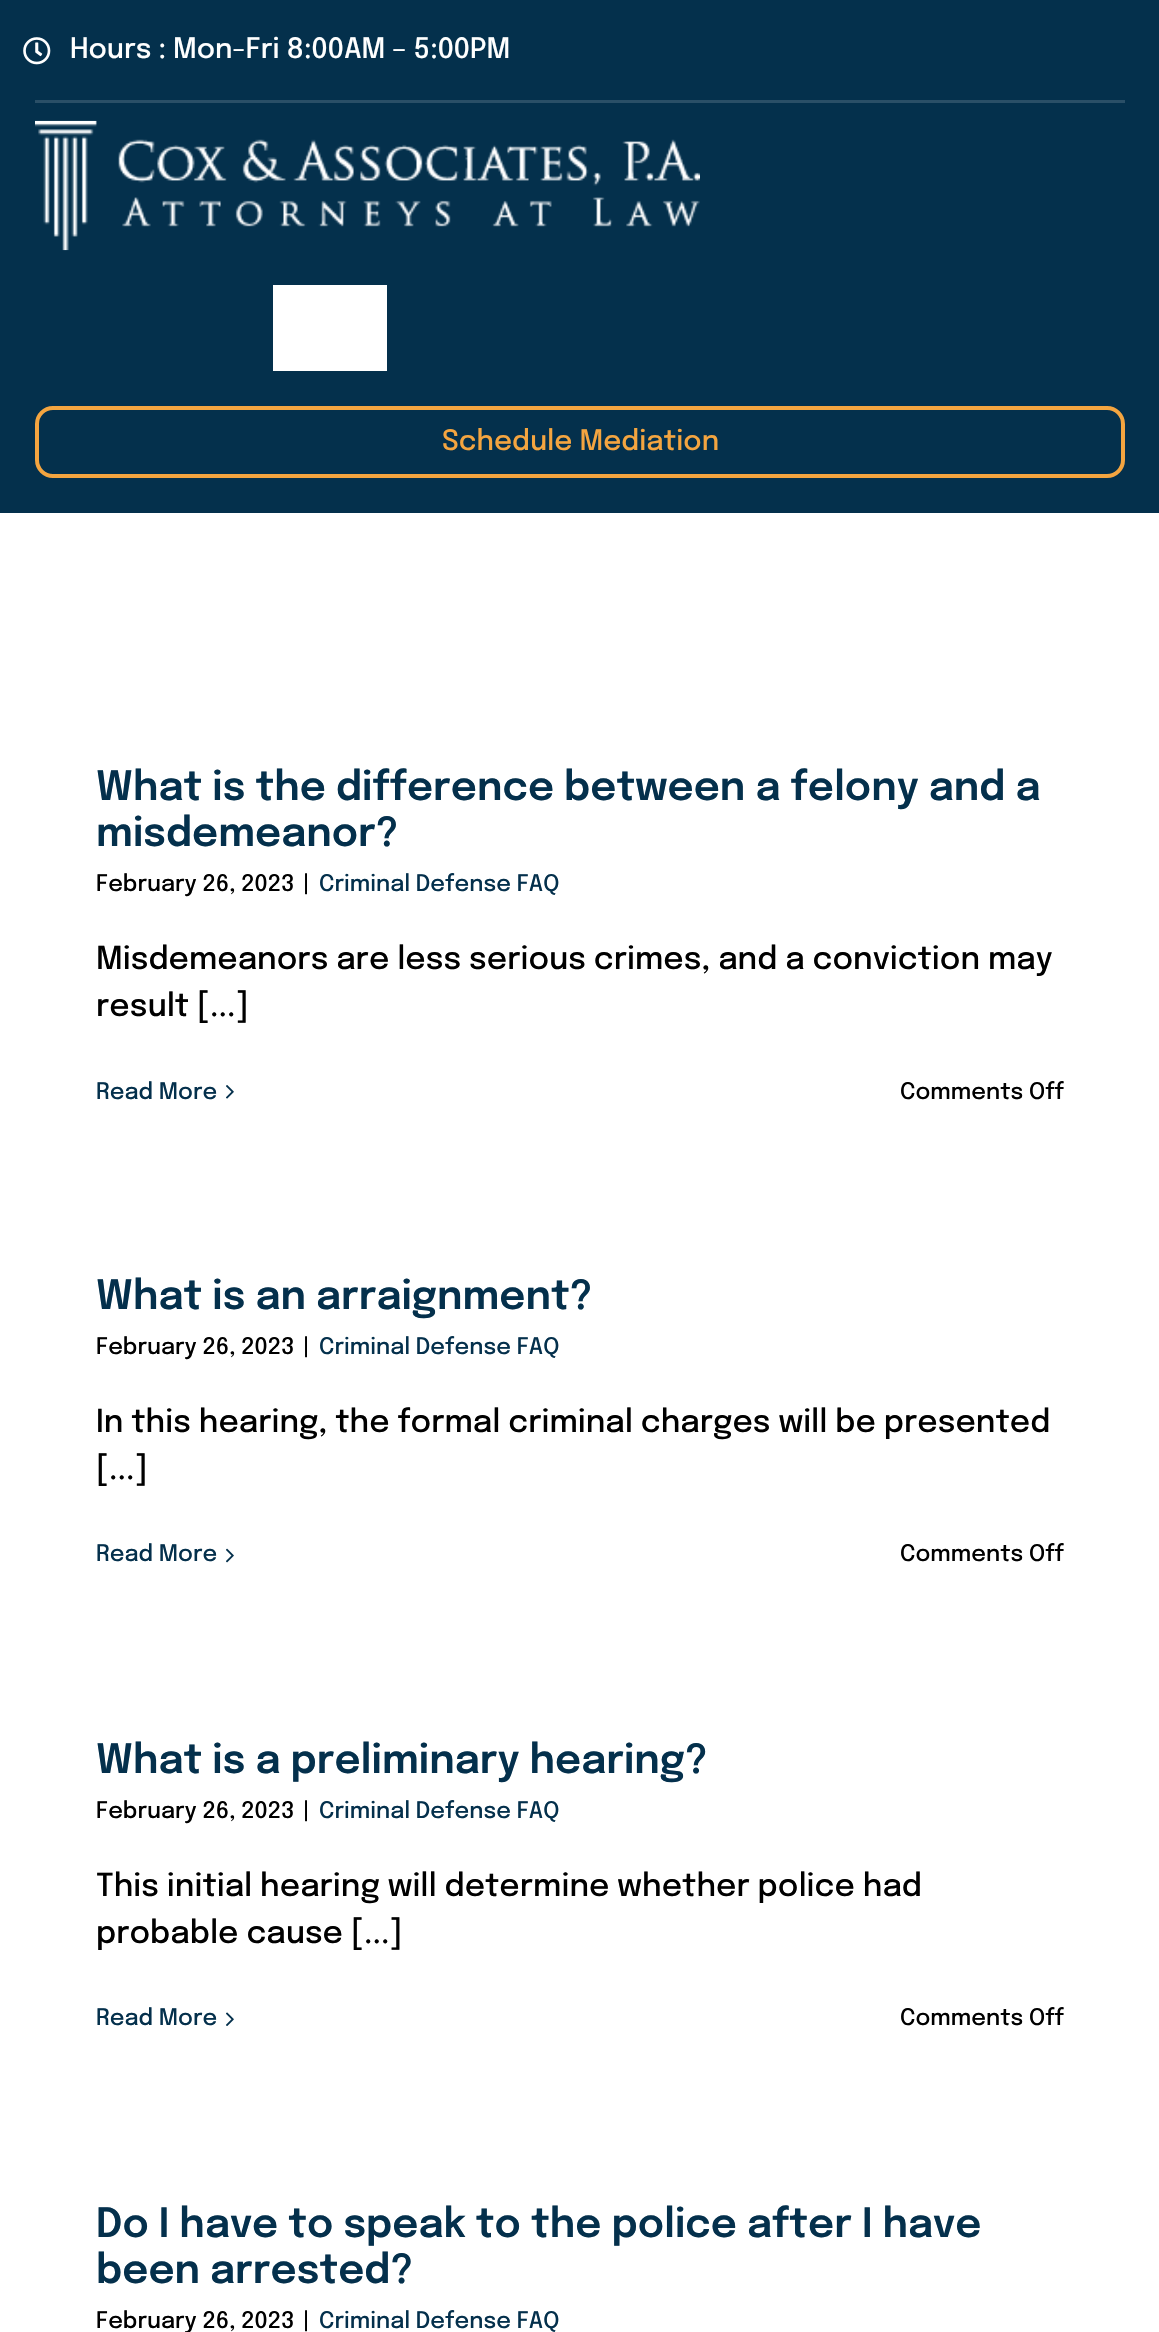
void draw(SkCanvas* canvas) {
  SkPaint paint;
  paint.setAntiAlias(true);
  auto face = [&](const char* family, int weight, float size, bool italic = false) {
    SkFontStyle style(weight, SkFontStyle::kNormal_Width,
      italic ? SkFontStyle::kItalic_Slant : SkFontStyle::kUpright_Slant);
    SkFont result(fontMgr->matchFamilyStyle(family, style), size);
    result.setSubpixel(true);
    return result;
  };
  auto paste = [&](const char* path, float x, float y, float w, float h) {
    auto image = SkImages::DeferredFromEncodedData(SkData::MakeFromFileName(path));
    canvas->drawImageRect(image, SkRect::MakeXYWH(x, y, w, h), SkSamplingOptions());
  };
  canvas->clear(0xffffffff);
  paint.setColor(0xff04304c);
  canvas->drawRect(SkRect::MakeXYWH(0, 0, 1159, 513), paint);
  paint.setColor(0xff2a4f67);
  canvas->drawRect(SkRect::MakeXYWH(35, 100, 1090, 3), paint);
  paste("img/1.png", 23, 37, 28, 28);
  paste("img/2.png", 35, 120, 665, 131);
  paint.setColor(0xffffffff);
  canvas->drawRect(SkRect::MakeXYWH(273, 285, 114, 86), paint);
  paint.setStroke(true);
  paint.setStrokeWidth(4);
  paint.setColor(0xfff4a540);
  canvas->drawRoundRect(SkRect::MakeXYWH(37, 408, 1086, 68), 16, 16, paint);
  paste("img/3.png", 226, 1085, 8, 14);
  paste("img/4.png", 226, 1548, 8, 15);
  paste("img/5.png", 226, 2012, 8, 14);
  auto f0 = face("Epilogue", 500, 28);
  paint.setStroke(false);
  paint.setColor(0xffffffff);
  canvas->drawString("Hours : Mon-Fri 8:00AM – 5:00PM", 70, 58, f0, paint);
  paint.setColor(0xfff4a540);
  canvas->drawString("Schedule Mediation", 442, 450, f0, paint);
  auto f1 = face("Epilogue", 600, 40.25f);
  paint.setColor(0xff04304c);
  canvas->drawString("What is the difference between a felony and a", 96, 800, f1, paint);
  canvas->drawString("misdemeanor?", 96, 846, f1, paint);
  auto f2 = face("Epilogue", 500, 22.75f);
  paint.setColor(0xff000000);
  canvas->drawString("February 26, 2023", 96, 891, f2, paint);
  canvas->drawString("|", 303, 891, f2, paint);
  paint.setColor(0xff04304c);
  canvas->drawString("Criminal Defense FAQ", 319, 891, f2, paint);
  auto f3 = face("Epilogue", 500, 31.5f);
  paint.setColor(0xff000000);
  canvas->drawString("Misdemeanors are less serious crimes, and a conviction may", 96, 969, f3, paint);
  canvas->drawString("result [...]", 96, 1016, f3, paint);
  paint.setColor(0xff04304c);
  canvas->drawString("Read More", 96, 1099, f2, paint);
  paint.setColor(0xff000000);
  canvas->drawString("Comments Off", 900, 1099, f2, paint);
  paint.setColor(0xff04304c);
  canvas->drawString("What is an arraignment?", 96, 1309, f1, paint);
  paint.setColor(0xff000000);
  canvas->drawString("February 26, 2023", 96, 1354, f2, paint);
  canvas->drawString("|", 303, 1354, f2, paint);
  paint.setColor(0xff04304c);
  canvas->drawString("Criminal Defense FAQ", 319, 1354, f2, paint);
  paint.setColor(0xff000000);
  canvas->drawString("In this hearing, the formal criminal charges will be presented", 96, 1432, f3, paint);
  canvas->drawString("[...]", 96, 1479, f3, paint);
  paint.setColor(0xff04304c);
  canvas->drawString("Read More", 96, 1561, f2, paint);
  paint.setColor(0xff000000);
  canvas->drawString("Comments Off", 900, 1561, f2, paint);
  paint.setColor(0xff04304c);
  canvas->drawString("What is a preliminary hearing?", 96, 1773, f1, paint);
  paint.setColor(0xff000000);
  canvas->drawString("February 26, 2023", 96, 1818, f2, paint);
  canvas->drawString("|", 303, 1818, f2, paint);
  paint.setColor(0xff04304c);
  canvas->drawString("Criminal Defense FAQ", 319, 1818, f2, paint);
  paint.setColor(0xff000000);
  canvas->drawString("This initial hearing will determine whether police had", 96, 1896, f3, paint);
  canvas->drawString("probable cause [...]", 96, 1943, f3, paint);
  paint.setColor(0xff04304c);
  canvas->drawString("Read More", 96, 2025, f2, paint);
  paint.setColor(0xff000000);
  canvas->drawString("Comments Off", 900, 2025, f2, paint);
  paint.setColor(0xff04304c);
  canvas->drawString("Do I have to speak to the police after I have", 96, 2237, f1, paint);
  canvas->drawString("been arrested?", 96, 2283, f1, paint);
  paint.setColor(0xff000000);
  canvas->drawString("February 26, 2023", 96, 2328, f2, paint);
  canvas->drawString("|", 303, 2328, f2, paint);
  paint.setColor(0xff04304c);
  canvas->drawString("Criminal Defense FAQ", 319, 2328, f2, paint);
}
